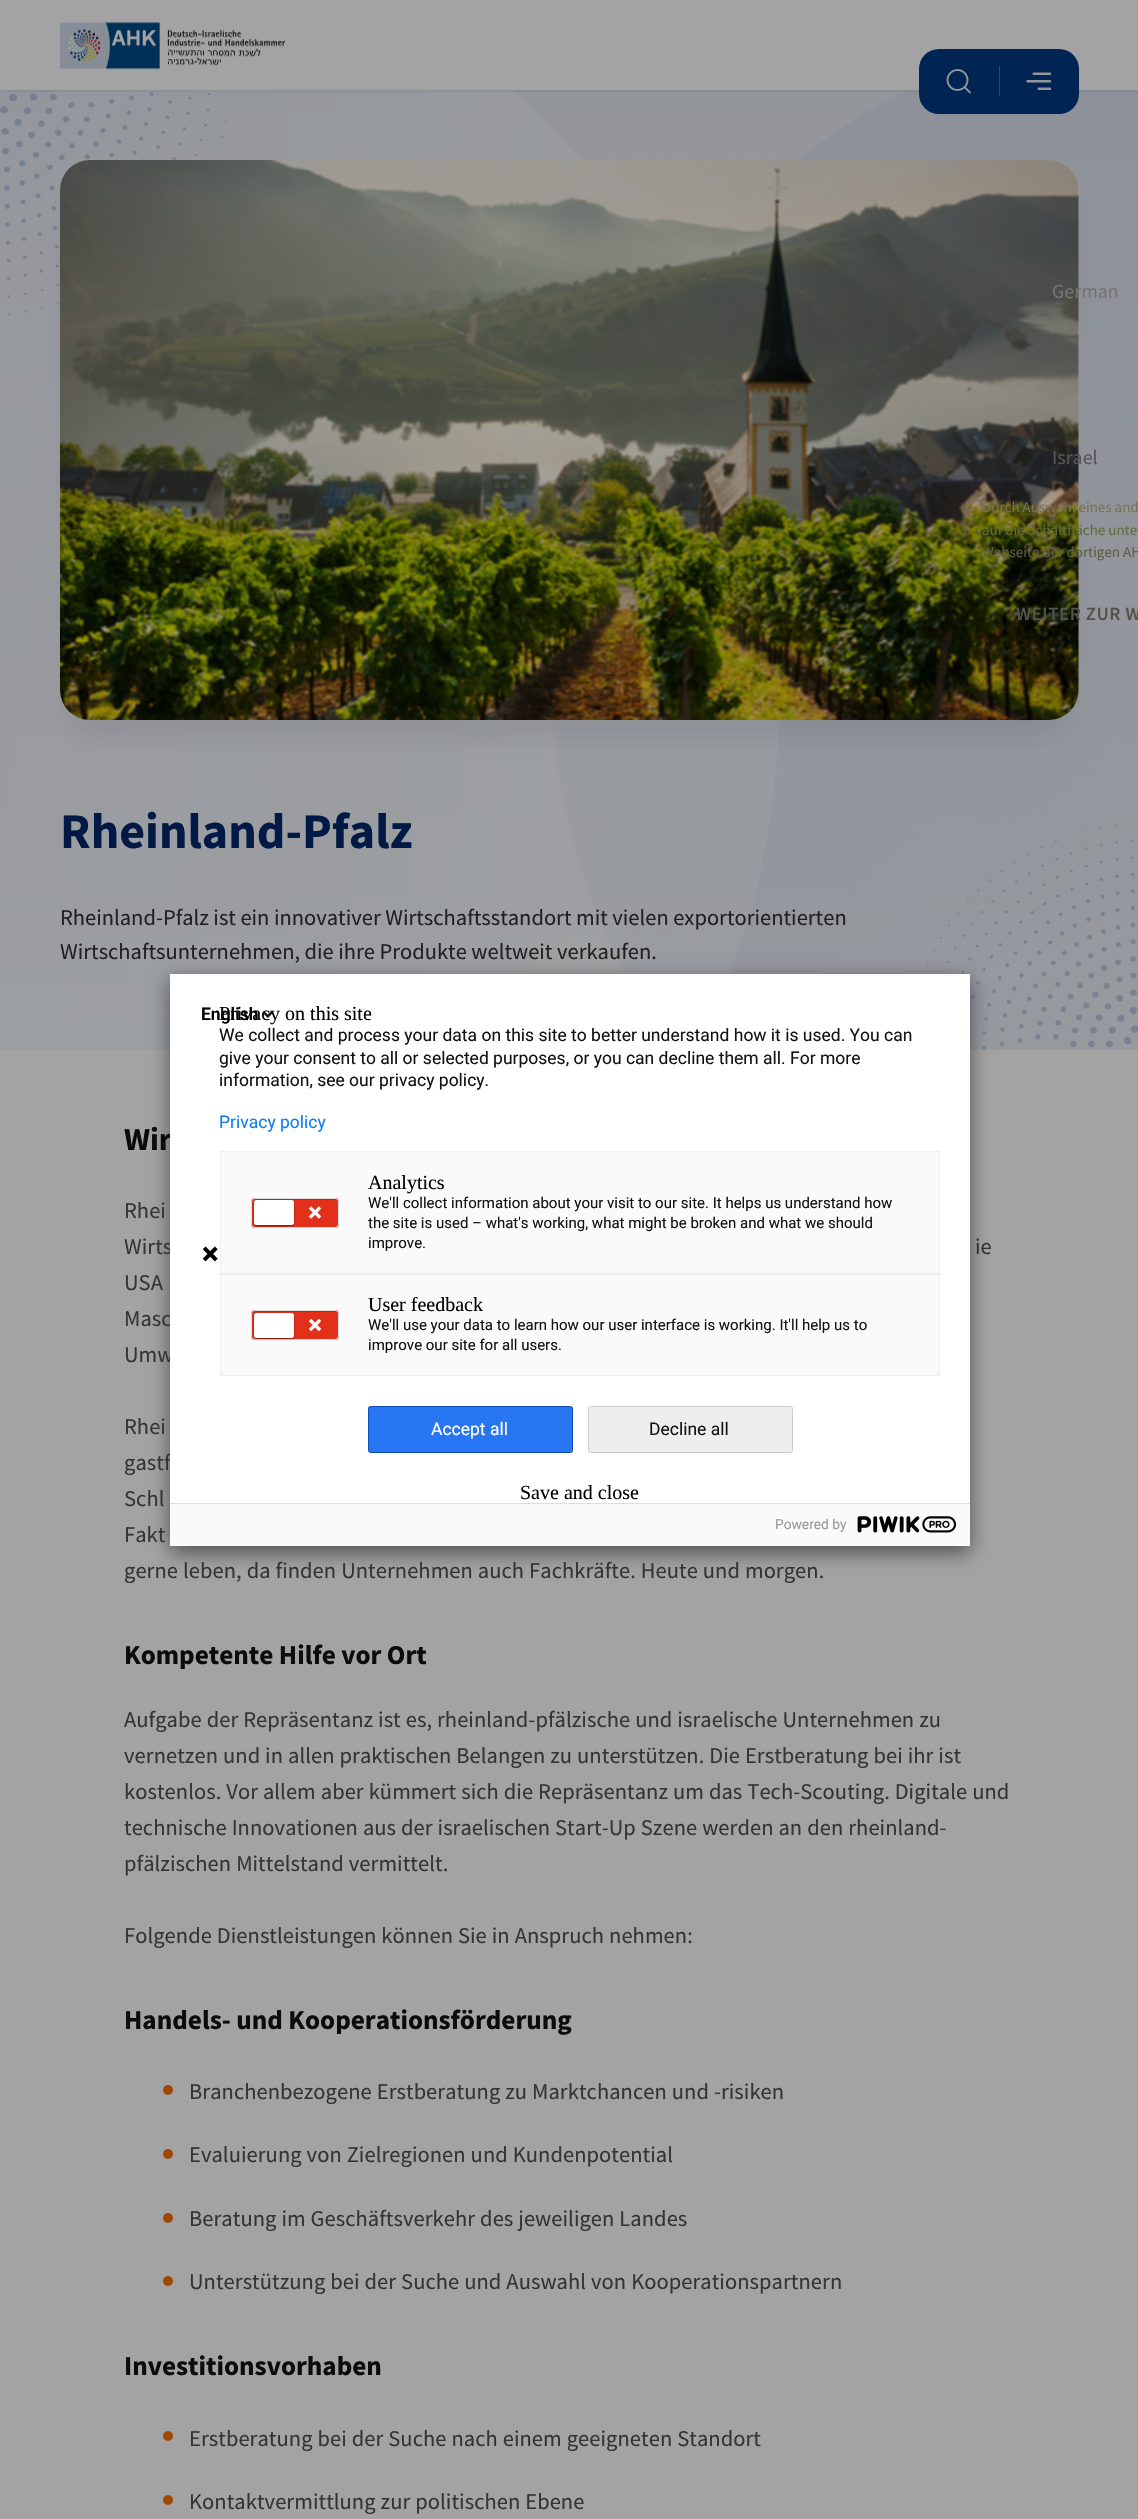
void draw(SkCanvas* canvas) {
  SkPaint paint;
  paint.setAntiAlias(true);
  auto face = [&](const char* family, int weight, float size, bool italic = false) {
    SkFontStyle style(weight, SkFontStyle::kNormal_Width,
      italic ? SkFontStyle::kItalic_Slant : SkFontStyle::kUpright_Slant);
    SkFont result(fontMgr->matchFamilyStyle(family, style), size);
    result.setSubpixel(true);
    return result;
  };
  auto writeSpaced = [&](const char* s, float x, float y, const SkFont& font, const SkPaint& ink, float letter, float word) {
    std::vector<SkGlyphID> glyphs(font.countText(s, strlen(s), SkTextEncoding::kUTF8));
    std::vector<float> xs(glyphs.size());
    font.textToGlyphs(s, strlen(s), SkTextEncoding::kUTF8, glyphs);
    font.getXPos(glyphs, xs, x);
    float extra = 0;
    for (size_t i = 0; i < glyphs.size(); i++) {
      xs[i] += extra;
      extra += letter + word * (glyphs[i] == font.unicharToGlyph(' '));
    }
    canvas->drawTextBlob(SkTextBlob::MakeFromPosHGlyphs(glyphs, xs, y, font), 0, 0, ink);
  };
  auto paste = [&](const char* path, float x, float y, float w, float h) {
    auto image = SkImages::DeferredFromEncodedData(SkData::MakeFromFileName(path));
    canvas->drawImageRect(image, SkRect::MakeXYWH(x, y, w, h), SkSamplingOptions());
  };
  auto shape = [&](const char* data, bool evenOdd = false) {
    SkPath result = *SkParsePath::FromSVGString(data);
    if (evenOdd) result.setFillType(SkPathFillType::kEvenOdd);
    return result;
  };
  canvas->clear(0xffa3a3a3);
  paste("img/5.png", 0, 90, 1138, 960);
  paste("img/4.png", 0, 92, 1138, 958);
  canvas->save();
  canvas->clipRect(SkRect::MakeXYWH(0, 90, 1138, 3));
  paint.setColor(0x1f0a0f1a);
  paint.setMaskFilter(SkMaskFilter::MakeBlur(kNormal_SkBlurStyle, 2));
  canvas->drawRect(SkRect::MakeXYWH(0, 1, 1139, 90), paint);
  paint.setMaskFilter(nullptr);
  canvas->restore();
  paste("img/1.png", 60, 22, 225, 48);
  paint.setColor(0xff002453);
  canvas->drawRoundRect(SkRect::MakeXYWH(919, 49, 160, 65), 20, 20, paint);
  paste("img/2.png", 946, 69, 25, 25);
  paint.setColor(0xff304570);
  canvas->drawRect(SkRect::MakeXYWH(999, 66, 1, 30), paint);
  paste("img/3.png", 1026, 72, 26, 18);
  paint.setColor(0x140a0f1a);
  paint.setMaskFilter(SkMaskFilter::MakeBlur(kNormal_SkBlurStyle, 15));
  canvas->drawRoundRect(SkRect::MakeXYWH(68, 193, 1003, 545), 23, 23, paint);
  paint.setMaskFilter(nullptr);
  paint.setColor(0xffa3a3a3);
  canvas->drawRoundRect(SkRect::MakeXYWH(60, 160, 1019, 560), 30, 30, paint);
  paste("img/6.png", 60, 160, 1019, 560);
  paint.setColor(0xff9f4800);
  canvas->drawCircle(168, 2090, 5, paint);
  canvas->drawCircle(168, 2154, 5, paint);
  canvas->drawCircle(168, 2218, 5, paint);
  canvas->drawCircle(168, 2281, 5, paint);
  canvas->drawCircle(168, 2436, 5, paint);
  canvas->drawCircle(168, 2500, 5, paint);
  paint.setColor(0x80000000);
  paint.setMaskFilter(SkMaskFilter::MakeBlur(kNormal_SkBlurStyle, 9.5f));
  canvas->drawRect(SkRect::MakeXYWH(170, 980, 800, 573), paint);
  paint.setMaskFilter(nullptr);
  paint.setColor(0xfffafafa);
  canvas->drawRect(SkRect::MakeXYWH(170, 1504, 800, 42), paint);
  paint.setColor(0xffdddddd);
  canvas->drawRect(SkRect::MakeXYWH(170, 1503, 800, 1), paint);
  paste("img/11.png", 857, 1516, 99, 17);
  auto f0 = face("Source Sans Pro", 400, 20);
  paint.setColor(0xff727476);
  canvas->drawString("German", 1052, 298, f0, paint);
  paint.setColor(0xff54565a);
  canvas->drawString("Israel", 1052, 464, f0, paint);
  auto f1 = face("Source Sans Pro", 400, 15);
  paint.setColor(0xff767257);
  canvas->drawString("Durch Auswahl eines and", 982, 512, f1, paint);
  paint.setColor(0xff63693d);
  canvas->drawString("auf die Schaltfläche unte", 982, 535, f1, paint);
  paint.setColor(0xff5c5f43);
  canvas->drawString("Webseite der dortigen AH", 982, 557, f1, paint);
  auto f2 = face("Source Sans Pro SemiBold", 600, 18.75f);
  paint.setColor(0xff4f534b);
  writeSpaced("WEITER ZUR W", 1016, 620, f2, paint, 0.6f, 0);
  auto f3 = face("Source Sans Pro", 700, 50);
  paint.setColor(0xff001a45);
  canvas->drawString("Rheinland-Pfalz", 60, 848, f3, paint);
  auto f4 = face("Source Sans Pro", 400, 22.5f);
  paint.setColor(0xff212121);
  canvas->drawString("Rheinland-Pfalz ist ein innovativer Wirtschaftsstandort mit vielen exportorientierten", 60, 925, f4, paint);
  canvas->drawString("Wirtschaftsunternehmen, die ihre Produkte weltweit verkaufen.", 60, 959, f4, paint);
  auto f5 = face("Source Sans Pro", 700, 32);
  paint.setColor(0xff0c0c0c);
  canvas->drawString("Wir", 124, 1150, f5, paint);
  paint.setColor(0xff343434);
  {
    const struct { const char* s; float x, y; } items[] = {
      {"Rhei", 124, 1218},
      {"Wirts", 124, 1254},
      {"ie", 975, 1254},
      {"USA", 124, 1290},
      {"Masc", 124, 1326},
      {"Umw", 124, 1362},
      {"Rhei", 124, 1434},
      {"gastf", 124, 1470},
      {"Schl", 124, 1506},
      {"Fakt", 124, 1542},
      {"gerne leben, da finden Unternehmen auch Fachkräfte. Heute und morgen.", 124, 1578},
    };
    for (auto [s, x, y] : items) {
      writeSpaced(s, x, y, f4, paint, 0.05f, 0.4f);
    }
  }
  auto f6 = face("Source Sans Pro", 700, 27.2f);
  paint.setColor(0xff0c0c0c);
  canvas->drawString("Kompetente Hilfe vor Ort", 124, 1664, f6, paint);
  paint.setColor(0xff343434);
  {
    const struct { const char* s; float x, y; } items[] = {
      {"Aufgabe der Repräsentanz ist es, rheinland-pfälzische und israelische Unternehmen zu", 124, 1727},
      {"vernetzen und in allen praktischen Belangen zu unterstützen. Die Erstberatung bei ihr ist", 124, 1763},
      {"kostenlos. Vor allem aber kümmert sich die Repräsentanz um das Tech-Scouting. Digitale und", 124, 1799},
      {"technische Innovationen aus der israelischen Start-Up Szene werden an den rheinland-", 124, 1835},
      {"pfälzischen Mittelstand vermittelt.", 124, 1871},
      {"Folgende Dienstleistungen können Sie in Anspruch nehmen:", 124, 1943},
    };
    for (auto [s, x, y] : items) {
      writeSpaced(s, x, y, f4, paint, 0.05f, 0.4f);
    }
  }
  paint.setColor(0xff0c0c0c);
  canvas->drawString("Handels- und Kooperationsförderung", 124, 2029, f6, paint);
  paint.setColor(0xff343434);
  {
    const struct { const char* s; float x, y; } items[] = {
      {"Branchenbezogene Erstberatung zu Marktchancen und -risiken", 189, 2099},
      {"Evaluierung von Zielregionen und Kundenpotential", 189, 2162},
      {"Beratung im Geschäftsverkehr des jeweiligen Landes", 189, 2226},
      {"Unterstützung bei der Suche und Auswahl von Kooperationspartnern", 189, 2289},
    };
    for (auto [s, x, y] : items) {
      writeSpaced(s, x, y, f4, paint, 0.05f, 0.4f);
    }
  }
  paint.setColor(0xff0c0c0c);
  canvas->drawString("Investitionsvorhaben", 124, 2375, f6, paint);
  paint.setColor(0xff343434);
  writeSpaced("Erstberatung bei der Suche nach einem geeigneten Standort", 189, 2446, f4, paint, 0.05f, 0.4f);
  writeSpaced("Kontaktvermittlung zur politischen Ebene", 189, 2509, f4, paint, 0.05f, 0.4f);
  paint.setColor(0xffffffff);
  canvas->drawRect(SkRect::MakeXYWH(170, 974, 800, 529), paint);
  paste("img/8.png", 202, 1246, 16, 16);
  auto f7 = face("Liberation Serif", 400, 20);
  paint.setColor(0xff000000);
  canvas->drawString("Privacy on this site", 219, 1020, f7, paint);
  paste("img/7.png", 262, 1011, 11, 7);
  auto f8 = face("Roboto", 600, 17.5f);
  canvas->drawString("English", 201, 1020, f8, paint);
  auto f9 = face("Roboto", 400, 17.5f);
  paint.setColor(0xff131313);
  {
    const struct { const char* s; float x, y; } items[] = {
      {"We collect and process your data on this site to better understand how it is used. You can", 219, 1041},
      {"give your consent to all or selected purposes, or you can decline them all. For more", 219, 1064},
      {"information, see our privacy policy.", 219, 1086},
    };
    for (auto [s, x, y] : items) {
      canvas->drawString(s, x, y, f9, paint);
    }
  }
  paint.setColor(0xff107ef1);
  canvas->drawString("Privacy policy", 219, 1128, f9, paint);
  paint.setColor(0xfffafafa);
  canvas->drawRect(SkRect::MakeXYWH(220.5f, 1151.5f, 719, 122), paint);
  paint.setStroke(true);
  paint.setStrokeWidth(1);
  paint.setColor(0xffeeeeee);
  canvas->drawRect(SkRect::MakeXYWH(220.5f, 1151.5f, 719, 122), paint);
  paint.setStroke(false);
  paint.setColor(0xffe3301b);
  canvas->drawRoundRect(SkRect::MakeXYWH(251, 1198, 88, 30), 4, 4, paint);
  paint.setColor(0xffb62616);
  canvas->drawPath(shape("M255 1200H335C336 1200 338 1201 338 1202C338 1201 338 1200 336 1199H255L253 1201Z"), paint);
  paint.setStroke(true);
  paint.setColor(0xffdddddd);
  canvas->drawRoundRect(SkRect::MakeXYWH(251.5f, 1198.5f, 87, 29), 3.5f, 3.5f, paint);
  paint.setStroke(false);
  paint.setColor(0x80000000);
  paint.setMaskFilter(SkMaskFilter::MakeBlur(kNormal_SkBlurStyle, 1));
  canvas->drawRoundRect(SkRect::MakeXYWH(254, 1201, 40, 25), 2.5f, 2.5f, paint);
  paint.setMaskFilter(nullptr);
  paint.setColor(0xffffffff);
  canvas->drawRoundRect(SkRect::MakeXYWH(254, 1200, 40, 25), 2.5f, 2.5f, paint);
  paste("img/9.png", 308, 1206, 14, 13);
  paint.setColor(0xff000000);
  canvas->drawString("Analytics", 368, 1189, f7, paint);
  auto f10 = face("Roboto", 400, 15);
  paint.setColor(0xff131313);
  {
    const struct { const char* s; float x, y; } items[] = {
      {"We'll collect information about your visit to our site. It helps us understand how", 368, 1208},
      {"the site is used – what's working, what might be broken and what we should", 368, 1228},
      {"improve.", 368, 1248},
    };
    for (auto [s, x, y] : items) {
      canvas->drawString(s, x, y, f10, paint);
    }
  }
  paint.setColor(0xfffafafa);
  canvas->drawRect(SkRect::MakeXYWH(220.5f, 1274.5f, 719, 101), paint);
  paint.setStroke(true);
  paint.setColor(0xffeeeeee);
  canvas->drawRect(SkRect::MakeXYWH(220.5f, 1274.5f, 719, 101), paint);
  paint.setStroke(false);
  paint.setColor(0xffe3301b);
  canvas->drawRoundRect(SkRect::MakeXYWH(251, 1310, 88, 30), 4, 4, paint);
  paint.setColor(0xffb62616);
  canvas->drawPath(shape("M255 1312H336L338 1315V1314C338 1312 337 1311 336 1311H256C254 1311 253 1312 253 1313Z"), paint);
  paint.setStroke(true);
  paint.setColor(0xffdddddd);
  canvas->drawRoundRect(SkRect::MakeXYWH(251.5f, 1310.5f, 87, 29), 3.5f, 3.5f, paint);
  paint.setStroke(false);
  paint.setColor(0x80000000);
  paint.setMaskFilter(SkMaskFilter::MakeBlur(kNormal_SkBlurStyle, 1));
  canvas->drawRoundRect(SkRect::MakeXYWH(254, 1314, 40, 25), 2.5f, 2.5f, paint);
  paint.setMaskFilter(nullptr);
  paint.setColor(0xffffffff);
  canvas->drawRoundRect(SkRect::MakeXYWH(254, 1313, 40, 25), 2.5f, 2.5f, paint);
  paste("img/10.png", 308, 1318, 14, 14);
  paint.setColor(0xff000000);
  canvas->drawString("User feedback", 368, 1311, f7, paint);
  paint.setColor(0xff131313);
  canvas->drawString("We'll use your data to learn how our user interface is working. It'll help us to", 368, 1330, f10, paint);
  canvas->drawString("improve our site for all users.", 368, 1350, f10, paint);
  paint.setColor(0xff2775f2);
  canvas->drawRoundRect(SkRect::MakeXYWH(368.5f, 1406.5f, 204, 46), 2, 2, paint);
  paint.setStroke(true);
  paint.setColor(0xff0b4bb3);
  canvas->drawRoundRect(SkRect::MakeXYWH(368.5f, 1406.5f, 204, 46), 2, 2, paint);
  paint.setStroke(false);
  paint.setColor(0xffffffff);
  canvas->drawString("Accept all", 431, 1435, f9, paint);
  paint.setColor(0xffeeeeee);
  canvas->drawRoundRect(SkRect::MakeXYWH(588.5f, 1406.5f, 204, 46), 2, 2, paint);
  paint.setStroke(true);
  paint.setColor(0xffcccccc);
  canvas->drawRoundRect(SkRect::MakeXYWH(588.5f, 1406.5f, 204, 46), 2, 2, paint);
  paint.setStroke(false);
  paint.setColor(0xff131313);
  canvas->drawString("Decline all", 649, 1435, f9, paint);
  paint.setColor(0xff000000);
  canvas->drawString("Save and close", 520, 1499, f7, paint);
  auto f11 = face("Roboto", 400, 13.75f);
  paint.setColor(0xff999999);
  canvas->drawString("Powered by", 775, 1529, f11, paint);
}
